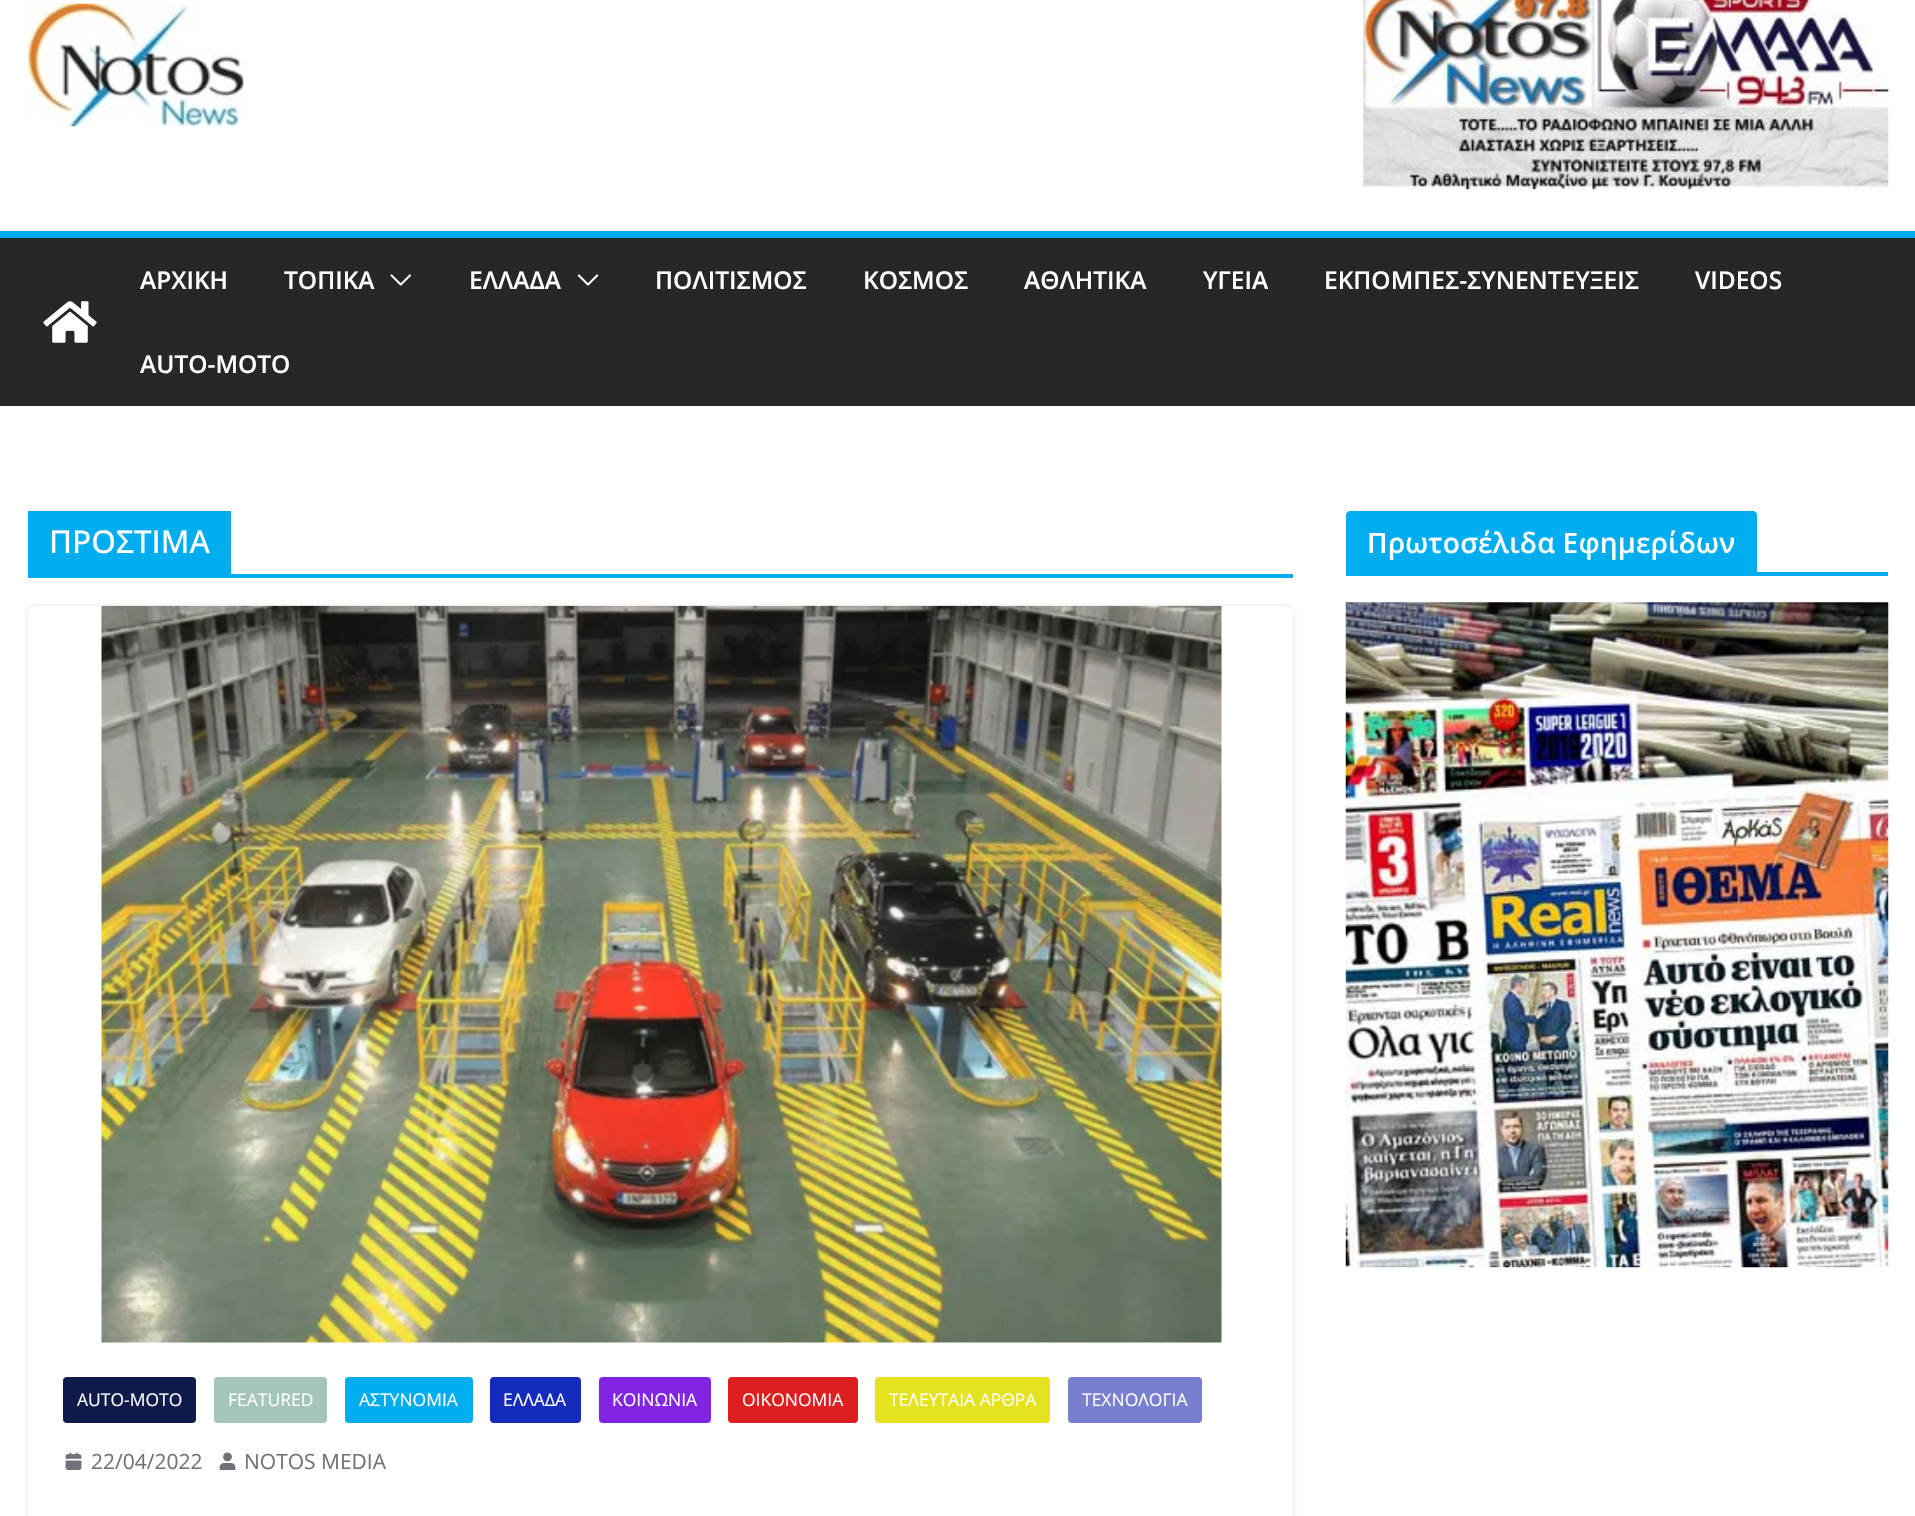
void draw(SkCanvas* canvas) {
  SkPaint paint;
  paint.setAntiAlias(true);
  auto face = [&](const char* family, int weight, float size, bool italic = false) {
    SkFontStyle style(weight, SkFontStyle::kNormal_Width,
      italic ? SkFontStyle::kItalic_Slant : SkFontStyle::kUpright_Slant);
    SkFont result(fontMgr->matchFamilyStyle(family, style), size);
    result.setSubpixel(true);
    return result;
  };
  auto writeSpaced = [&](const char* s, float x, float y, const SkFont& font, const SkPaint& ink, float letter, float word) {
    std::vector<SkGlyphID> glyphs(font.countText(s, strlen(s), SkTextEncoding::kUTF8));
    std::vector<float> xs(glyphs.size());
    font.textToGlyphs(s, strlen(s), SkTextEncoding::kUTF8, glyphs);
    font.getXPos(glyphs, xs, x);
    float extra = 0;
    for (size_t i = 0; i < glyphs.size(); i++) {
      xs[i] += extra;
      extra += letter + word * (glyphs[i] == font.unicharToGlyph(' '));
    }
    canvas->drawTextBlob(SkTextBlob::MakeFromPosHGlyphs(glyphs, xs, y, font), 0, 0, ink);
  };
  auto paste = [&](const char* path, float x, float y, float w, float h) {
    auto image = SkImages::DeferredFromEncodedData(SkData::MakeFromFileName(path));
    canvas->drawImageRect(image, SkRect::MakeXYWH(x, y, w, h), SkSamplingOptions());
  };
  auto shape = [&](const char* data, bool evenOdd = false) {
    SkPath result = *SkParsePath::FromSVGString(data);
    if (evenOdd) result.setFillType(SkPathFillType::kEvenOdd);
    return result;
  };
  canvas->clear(0xffffffff);
  paste("img/1.png", 28, 3, 216, 124);
  paste("img/2.png", 1363, 0, 526, 190);
  paint.setColor(0xff27272a);
  canvas->drawRect(SkRect::MakeXYWH(0, 238, 1915, 168), paint);
  paint.setColor(0xff00adee);
  canvas->drawRect(SkRect::MakeXYWH(0, 231, 1915, 7), paint);
  paste("img/3.png", 43, 301, 54, 42);
  paste("img/4.png", 390, 274, 21, 12);
  paste("img/5.png", 577, 274, 22, 12);
  canvas->drawRect(SkRect::MakeXYWH(28, 574, 1265, 4), paint);
  canvas->drawRect(SkRect::MakeXYWH(28, 511, 203, 63), paint);
  canvas->save();
  canvas->clipPath(shape("M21 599H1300V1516H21ZM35 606H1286C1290 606 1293 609 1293 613V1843C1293 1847 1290 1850 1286 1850H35C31 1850 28 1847 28 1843V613C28 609 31 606 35 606Z", true), true);
  paint.setColor(0xffe4e4e7);
  paint.setMaskFilter(SkMaskFilter::MakeBlur(kNormal_SkBlurStyle, 2));
  canvas->drawRoundRect(SkRect::MakeXYWH(28, 606, 1265, 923), 7, 7, paint);
  paint.setMaskFilter(nullptr);
  canvas->restore();
  paste("img/6.png", 101, 605, 1121, 738);
  paint.setColor(0xff101b4c);
  canvas->drawRoundRect(SkRect::MakeXYWH(63, 1377, 133, 46), 4, 4, paint);
  paint.setColor(0xffa4c4be);
  canvas->drawRoundRect(SkRect::MakeXYWH(214, 1377, 113, 46), 4, 4, paint);
  paint.setColor(0xff00adee);
  canvas->drawRoundRect(SkRect::MakeXYWH(345, 1377, 128, 46), 4, 4, paint);
  paint.setColor(0xff142bbc);
  canvas->drawRoundRect(SkRect::MakeXYWH(490, 1377, 91, 46), 4, 4, paint);
  paint.setColor(0xff8224e3);
  canvas->drawRoundRect(SkRect::MakeXYWH(599, 1377, 112, 46), 4, 4, paint);
  paint.setColor(0xffdd1f1f);
  canvas->drawRoundRect(SkRect::MakeXYWH(728, 1377, 130, 46), 4, 4, paint);
  paint.setColor(0xffe5e220);
  canvas->drawRoundRect(SkRect::MakeXYWH(875, 1377, 175, 46), 4, 4, paint);
  paint.setColor(0xff777fce);
  canvas->drawRoundRect(SkRect::MakeXYWH(1068, 1377, 134, 46), 4, 4, paint);
  paste("img/7.png", 65, 1452, 17, 18);
  paste("img/8.png", 219, 1452, 17, 18);
  paint.setColor(0xff00adee);
  canvas->drawRect(SkRect::MakeXYWH(1346, 572, 542, 4), paint);
  canvas->drawPath(shape("M1350 511H1753C1755 511 1757 513 1757 515V572H1346V515C1346 513 1348 511 1350 511Z"), paint);
  paste("img/9.png", 1345, 602, 544, 666);
  auto f0 = face("Open Sans", 600, 24.5f);
  paint.setColor(0xffffffff);
  {
    const struct { const char* s; float x, y; } items[] = {
      {"ΑΡΧΙΚΗ", 140, 289},
      {"ΤΟΠΙΚΑ", 284, 289},
      {"ΕΛΛΑΔΑ", 469, 289},
      {"ΠΟΛΙΤΙΣΜΟΣ", 655, 289},
      {"ΚΟΣΜΟΣ", 863, 289},
      {"ΑΘΛΗΤΙΚΑ", 1024, 289},
      {"ΥΓΕΙΑ", 1203, 289},
      {"ΕΚΠΟΜΠΕΣ-ΣΥΝΕΝΤΕΥΞΕΙΣ", 1324, 289},
      {"VIDEOS", 1695, 289},
      {"AUTO-MOTO", 140, 373},
    };
    for (auto [s, x, y] : items) {
      canvas->drawString(s, x, y, f0, paint);
    }
  }
  auto f1 = face("Open Sans", 500, 31.5f);
  canvas->drawString("ΠΡΟΣΤΙΜΑ", 49, 553, f1, paint);
  auto f2 = face("Open Sans", 400, 17.5f);
  {
    const struct { const char* s; float x, y; } items[] = {
      {"AUTO-MOTO", 77, 1406},
      {"FEATURED", 228, 1406},
      {"ΑΣΤΥΝΟΜΙΑ", 359, 1406},
      {"ΕΛΛΑΔΑ", 503, 1406},
      {"ΚΟΙΝΩΝΙΑ", 612, 1406},
      {"ΟΙΚΟΝΟΜΙΑ", 742, 1406},
      {"ΤΕΛΕΥΤΑΙΑ ΑΡΘΡΑ", 889, 1406},
      {"ΤΕΧΝΟΛΟΓΙΑ", 1082, 1406},
    };
    for (auto [s, x, y] : items) {
      canvas->drawString(s, x, y, f2, paint);
    }
  }
  auto f3 = face("Open Sans", 400, 21);
  paint.setColor(0xff71717a);
  canvas->drawString("22/04/2022", 91, 1469, f3, paint);
  canvas->drawString("NOTOS MEDIA", 244, 1469, f3, paint);
  auto f4 = face("Open Sans", 600, 28);
  paint.setColor(0xffffffff);
  writeSpaced("Πρωτοσέλιδα Εφημερίδων", 1367, 553, f4, paint, 0.25f, 0);
}
